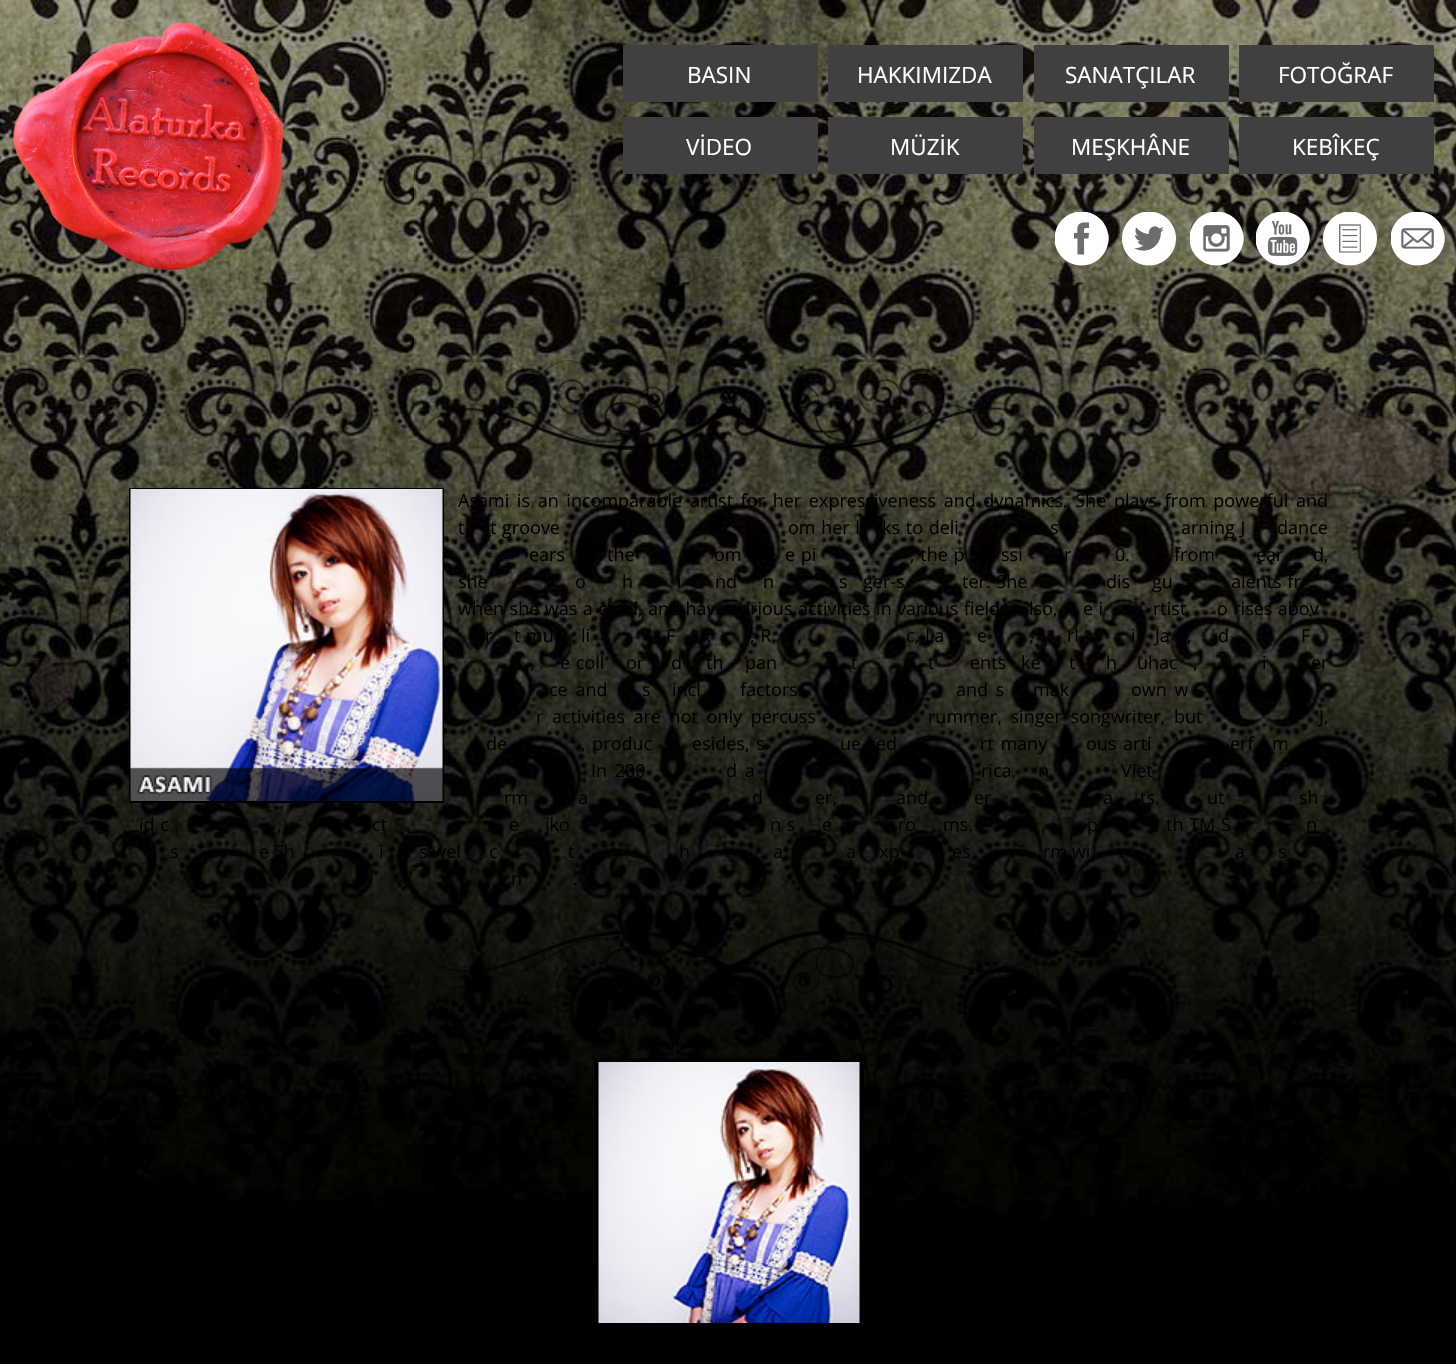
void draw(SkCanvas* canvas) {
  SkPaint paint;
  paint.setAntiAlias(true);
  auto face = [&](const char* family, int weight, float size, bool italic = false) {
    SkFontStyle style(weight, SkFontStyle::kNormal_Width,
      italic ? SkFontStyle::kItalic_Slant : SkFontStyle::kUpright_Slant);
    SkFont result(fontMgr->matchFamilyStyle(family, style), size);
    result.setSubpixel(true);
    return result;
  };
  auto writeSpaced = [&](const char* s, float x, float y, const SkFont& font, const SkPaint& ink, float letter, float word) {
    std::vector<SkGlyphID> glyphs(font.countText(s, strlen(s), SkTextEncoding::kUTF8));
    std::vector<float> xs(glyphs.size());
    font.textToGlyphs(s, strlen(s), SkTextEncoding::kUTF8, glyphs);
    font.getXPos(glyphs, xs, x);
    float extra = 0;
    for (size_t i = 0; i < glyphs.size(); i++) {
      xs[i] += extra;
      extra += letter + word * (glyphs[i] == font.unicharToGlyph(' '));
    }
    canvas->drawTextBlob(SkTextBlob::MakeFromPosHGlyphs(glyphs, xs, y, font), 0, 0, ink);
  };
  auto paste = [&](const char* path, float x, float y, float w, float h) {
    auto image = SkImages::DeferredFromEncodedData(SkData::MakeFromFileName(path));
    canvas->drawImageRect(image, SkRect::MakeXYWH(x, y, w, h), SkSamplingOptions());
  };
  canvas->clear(0xff000000);
  paste("img/1.png", 0, 0, 1456, 1220);
  paste("img/2.png", 13, 22, 271, 248);
  {
    const struct { float x, y, w, h; SkColor color; } items[] = {
      {623, 45, 195, 57, 0xff404040},
      {828, 45, 195, 57, 0xff404040},
      {1034, 45, 195, 57, 0xff404040},
      {1239, 45, 195, 57, 0xff404040},
      {623, 117, 195, 57, 0xff404040},
      {828, 117, 195, 57, 0xff404040},
      {1034, 117, 195, 57, 0xff404040},
      {1239, 117, 195, 57, 0xff404040},
    };
    for (auto [x, y, w, h, color] : items) {
      paint.setColor(color);
      canvas->drawRect(SkRect::MakeXYWH(x, y, w, h), paint);
    }
  }
  paste("img/3.png", 1055, 212, 54, 54);
  paste("img/4.png", 1122, 212, 54, 54);
  paste("img/5.png", 1190, 212, 54, 54);
  paste("img/6.png", 1256, 212, 54, 54);
  paste("img/7.png", 1323, 212, 54, 54);
  paste("img/8.png", 1391, 212, 54, 54);
  paste("img/9.png", 429, 360, 600, 90);
  paint.setStroke(true);
  paint.setStrokeWidth(2);
  paint.setColor(0xff000000);
  canvas->drawRect(SkRect::MakeXYWH(130, 489, 313, 313), paint);
  paste("img/10.png", 130, 489, 313, 312);
  paste("img/11.png", 429, 930, 591, 90);
  paint.setStrokeWidth(5);
  canvas->drawRect(SkRect::MakeXYWH(596.5f, 1060.5f, 265, 265), paint);
  paste("img/12.png", 598, 1062, 262, 261);
  auto f0 = face("Open Sans", 400, 22.5f);
  paint.setStroke(false);
  paint.setColor(0xffffffff);
  {
    const struct { const char* s; float x, y; } items[] = {
      {"BASIN", 687, 83},
      {"HAKKIMIZDA", 857, 83},
      {"SANATÇILAR", 1065, 83},
      {"FOTOĞRAF", 1278, 83},
      {"VİDEO", 686, 155},
      {"MÜZİK", 890, 155},
      {"MEŞKHÂNE", 1071, 155},
      {"KEBÎKEÇ", 1292, 155},
    };
    for (auto [s, x, y] : items) {
      canvas->drawString(s, x, y, f0, paint);
    }
  }
  auto f1 = face("Open Sans", 400, 18);
  paint.setColor(0xff000000);
  writeSpaced("Asami is an incomparable artist for her expressiveness and dynamics. She plays from powerful and", 458, 507, f1, paint, 0, 3);
  {
    const struct { const char* s; float x, y; } items[] = {
      {"t", 458, 534},
      {"t groove", 490, 534},
      {"om her l", 788, 534},
      {"ks to deli", 882, 534},
      {"s", 1050, 534},
      {"arning J", 1181, 534},
      {"dance", 1277, 534},
      {"ears", 529, 561},
      {"the", 607, 561},
      {"om", 714, 561},
      {"e pi", 785, 561},
      {", the p", 910, 561},
      {"ssi", 1001, 561},
      {"r", 1064, 561},
      {"0.", 1115, 561},
      {"from", 1174, 561},
      {"ear", 1256, 561},
      {"d,", 1313, 561},
      {"she", 458, 588},
      {"o", 575, 588},
      {"h", 622, 588},
      {"i", 677, 588},
      {"nd", 715, 588},
      {"n", 763, 588},
      {"s", 839, 588},
      {"ger-s", 863, 588},
      {"ter. She", 962, 588},
      {"dis", 1106, 588},
      {"gu", 1152, 588},
      {"alents fr", 1231, 588},
    };
    for (auto [s, x, y] : items) {
      writeSpaced(s, x, y, f1, paint, 0, 1);
    }
  }
  {
    const struct { const char* s; float x, y; } items[] = {
      {"when she was a ch", 458, 615},
      {"d, and have various activities in various fields", 627, 615},
      {"lso,", 1029, 615},
      {"e i", 1083, 615},
      {"rtist", 1153, 615},
      {"o rises abov", 1217, 615},
    };
    for (auto [s, x, y] : items) {
      writeSpaced(s, x, y, f1, paint, 0, 0.75f);
    }
  }
  {
    const struct { const char* s; float x, y; } items[] = {
      {"r", 485, 642},
      {"t mu", 514, 642},
      {"li", 581, 642},
      {"F", 666, 642},
      {",", 707, 642},
      {", R", 750, 642},
      {",", 797, 642},
      {"c, La", 906, 642},
      {"e", 977, 642},
      {",", 1029, 642},
      {"rl", 1067, 642},
      {"i", 1131, 642},
      {"Ja", 1155, 642},
      {",", 1187, 642},
      {"d", 1218, 642},
      {"F", 1301, 642},
      {",", 530, 669},
      {"e coll", 560, 669},
      {"or", 626, 669},
      {"d", 671, 669},
      {"th", 706, 669},
      {"pan", 745, 669},
      {"t", 851, 669},
      {"t", 928, 669},
      {"ents", 970, 669},
      {"ke", 1021, 669},
      {"t", 1069, 669},
      {"h", 1106, 669},
      {"uhac", 1137, 669},
      {",", 1193, 669},
      {"i", 1262, 669},
    };
    for (auto [s, x, y] : items) {
      writeSpaced(s, x, y, f1, paint, 0, 1);
    }
  }
  canvas->drawString("er", 1311, 669, f1, paint);
  {
    const struct { const char* s; float x, y; } items[] = {
      {"ce and", 549, 696},
      {"s", 642, 696},
      {"incl", 672, 696},
      {"factors", 740, 696},
      {"and s", 956, 696},
      {"mak", 1033, 696},
      {"own w", 1131, 696},
    };
    for (auto [s, x, y] : items) {
      writeSpaced(s, x, y, f1, paint, 0, 3);
    }
  }
  {
    const struct { const char* s; float x, y; } items[] = {
      {"r activities are not only percuss", 536, 723},
      {"rummer, singer songwriter, but", 928, 723},
      {"J,", 1319, 723},
    };
    for (auto [s, x, y] : items) {
      writeSpaced(s, x, y, f1, paint, 0, 4);
    }
  }
  {
    const struct { const char* s; float x, y; } items[] = {
      {"de", 486, 750},
      {", produc", 581, 750},
      {"esides, s", 692, 750},
      {"ue", 840, 750},
      {"ed", 876, 750},
      {"rt many", 980, 750},
      {"ous arti", 1086, 750},
      {"’", 1175, 750},
      {"erf", 1230, 750},
      {"m", 1272, 750},
    };
    for (auto [s, x, y] : items) {
      writeSpaced(s, x, y, f1, paint, 0, 2);
    }
  }
  {
    const struct { const char* s; float x, y; } items[] = {
      {"In 200", 591, 777},
      {"d a", 726, 777},
      {"rica,", 981, 777},
      {"n", 1038, 777},
      {"Viet", 1121, 777},
    };
    for (auto [s, x, y] : items) {
      writeSpaced(s, x, y, f1, paint, 0, 3);
    }
  }
  {
    const struct { const char* s; float x, y; } items[] = {
      {"rm", 504, 804},
      {"a", 578, 804},
      {"d", 752, 804},
      {"er,", 815, 804},
      {"and", 896, 804},
      {"er", 974, 804},
      {"a", 1103, 804},
      {"ts.", 1140, 804},
      {"ut", 1207, 804},
      {"sh", 1299, 804},
      {"id c", 139, 831},
      {",", 277, 831},
      {"ct", 372, 831},
      {"e", 509, 831},
      {"iko", 545, 831},
      {"n s", 770, 831},
      {"e", 822, 831},
      {"ro", 898, 831},
      {"ms.", 943, 831},
      {",", 1041, 831},
      {"p", 1087, 831},
      {"th TM S", 1166, 831},
      {"n", 1306, 831},
    };
    for (auto [s, x, y] : items) {
      writeSpaced(s, x, y, f1, paint, 0, 1);
    }
  }
  {
    const struct { const char* s; float x, y; } items[] = {
      {"s", 170, 858},
      {"e Sh", 259, 858},
      {"i", 379, 858},
      {"s wel", 419, 858},
      {"c", 489, 858},
      {"t", 568, 858},
      {".", 648, 858},
      {"h", 679, 858},
      {"a", 773, 858},
      {"a", 846, 858},
      {"xp", 879, 858},
      {"es", 952, 858},
      {"rm wi", 1043, 858},
      {"a", 1235, 858},
      {"s", 1278, 858},
      {"n", 511, 885},
      {".", 573, 885},
    };
    for (auto [s, x, y] : items) {
      canvas->drawString(s, x, y, f1, paint);
    }
  }
}
